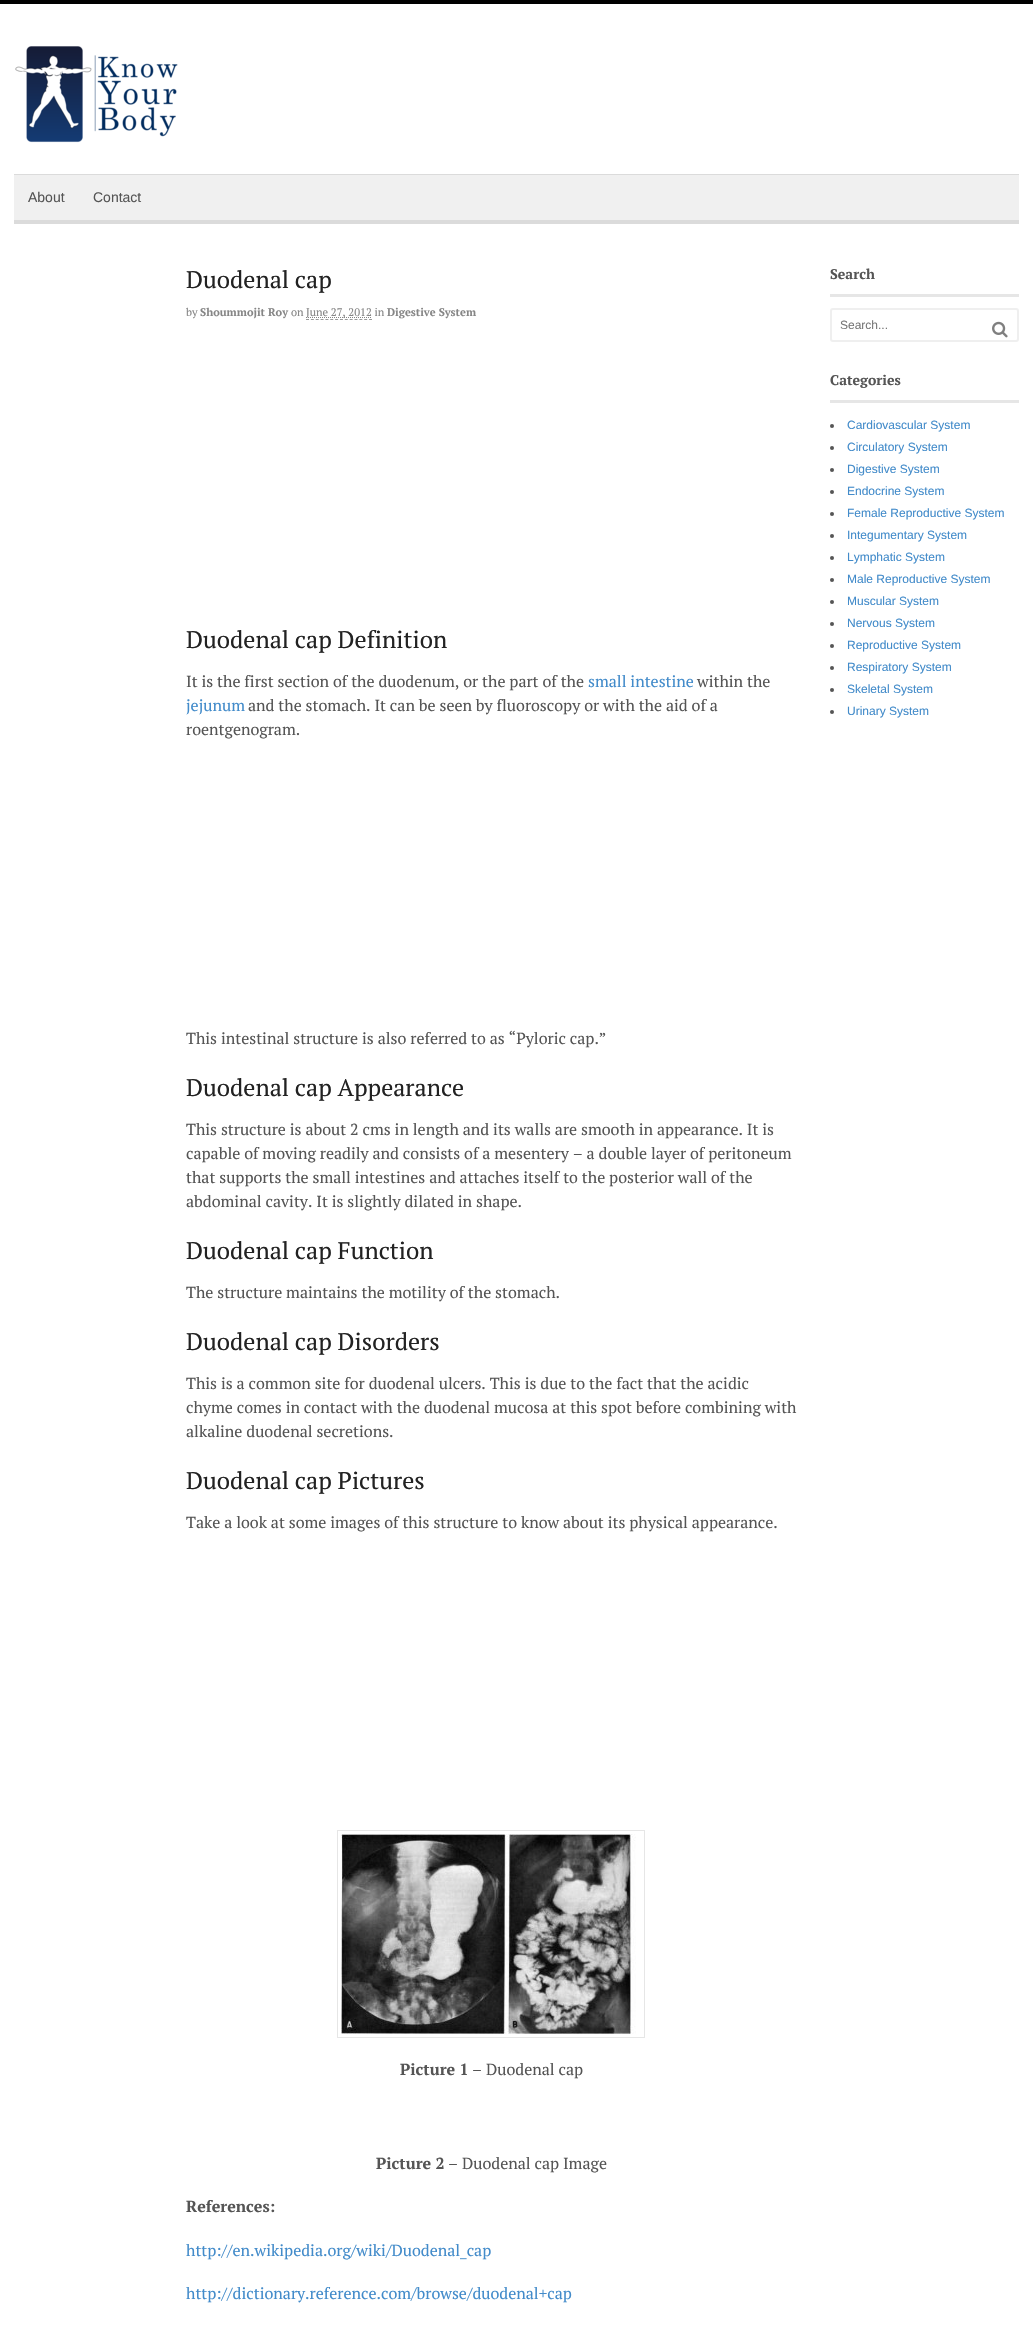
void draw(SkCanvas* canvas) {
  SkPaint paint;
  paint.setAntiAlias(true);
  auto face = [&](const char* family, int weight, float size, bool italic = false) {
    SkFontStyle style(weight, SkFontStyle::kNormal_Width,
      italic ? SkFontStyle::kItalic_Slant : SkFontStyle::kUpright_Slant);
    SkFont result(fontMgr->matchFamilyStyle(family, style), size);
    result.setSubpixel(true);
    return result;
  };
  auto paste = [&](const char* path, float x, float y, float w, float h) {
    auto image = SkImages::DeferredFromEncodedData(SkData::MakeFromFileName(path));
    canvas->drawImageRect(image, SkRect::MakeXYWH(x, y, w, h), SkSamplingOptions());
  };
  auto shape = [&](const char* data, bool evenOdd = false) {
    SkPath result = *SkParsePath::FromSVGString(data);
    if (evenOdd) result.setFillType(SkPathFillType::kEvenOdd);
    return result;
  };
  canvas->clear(0xffffffff);
  paint.setColor(0xff000000);
  canvas->drawRect(SkRect::MakeXYWH(0, 0, 1033, 4), paint);
  paste("img/1.png", 15, 46, 163, 97);
  {
    const struct { float x, y, w, h; SkColor color; } items[] = {
      {14, 175, 1005, 45, 0xfff0f0f0},
      {14, 174, 1005, 1, 0xffdbdbdb},
      {14, 220, 1005, 4, 0xffdbdbdb},
    };
    for (auto [x, y, w, h, color] : items) {
      paint.setColor(color);
      canvas->drawRect(SkRect::MakeXYWH(x, y, w, h), paint);
    }
  }
  paint.setStroke(true);
  paint.setStrokeWidth(1);
  paint.setColor(0xff999999);
  paint.setPathEffect(SkDashPathEffect::Make({{3, 1.85f}}, 0));
  canvas->drawPath(shape("M306 319.5H372"), paint);
  paint.setPathEffect(nullptr);
  paint.setColor(0xff868686);
  paint.setPathEffect(SkDashPathEffect::Make({{1, 1}}, 0));
  canvas->drawPath(shape("M306 317.5H371.5"), paint);
  paint.setPathEffect(nullptr);
  paint.setColor(0xffe6e6e6);
  canvas->drawRect(SkRect::MakeXYWH(337.5f, 1830.5f, 307, 207), paint);
  paste("img/2.png", 341, 1834, 295, 200);
  paint.setStroke(false);
  canvas->drawRect(SkRect::MakeXYWH(830, 294, 189, 3), paint);
  paint.setStroke(true);
  paint.setStrokeWidth(2);
  paint.setColor(0xffefefef);
  canvas->drawRoundRect(SkRect::MakeXYWH(831, 309, 187, 32), 2, 2, paint);
  paste("img/3.png", 992, 321, 16, 17);
  paint.setStroke(false);
  paint.setColor(0xffe6e6e6);
  canvas->drawRect(SkRect::MakeXYWH(830, 400, 189, 3), paint);
  paint.setColor(0xff555555);
  canvas->drawCircle(832, 426, 2, paint);
  canvas->drawCircle(832, 448, 2, paint);
  canvas->drawCircle(832, 470, 2, paint);
  canvas->drawCircle(832, 492, 2, paint);
  canvas->drawCircle(832, 514, 2, paint);
  canvas->drawCircle(832, 536, 2, paint);
  canvas->drawCircle(832, 558, 2, paint);
  canvas->drawCircle(832, 580, 2, paint);
  canvas->drawCircle(832, 602, 2, paint);
  canvas->drawCircle(832, 624, 2, paint);
  canvas->drawCircle(832, 646, 2, paint);
  canvas->drawCircle(832, 668, 2, paint);
  canvas->drawCircle(832, 690, 2, paint);
  canvas->drawCircle(832, 712, 2, paint);
  auto f0 = face("Liberation Sans", 400, 14);
  canvas->drawString("About", 28, 202, f0, paint);
  canvas->drawString("Contact", 93, 202, f0, paint);
  auto f1 = face("PT Serif", 400, 24);
  paint.setColor(0xff222222);
  canvas->drawString("Duodenal cap", 186, 288, f1, paint);
  auto f2 = face("PT Serif", 400, 11);
  paint.setColor(0xff868686);
  canvas->drawString("by", 186, 316, f2, paint);
  auto f3 = face("PT Serif", 700, 11);
  canvas->drawString("Shoummojit Roy", 200, 316, f3, paint);
  canvas->drawString("on", 291, 316, f2, paint);
  canvas->drawString("June 27, 2012 in", 306, 316, f2, paint);
  canvas->drawString("Digestive System", 387, 316, f3, paint);
  paint.setColor(0xff222222);
  canvas->drawString("Duodenal cap Definition", 186, 648, f1, paint);
  auto f4 = face("PT Serif", 400, 16);
  paint.setColor(0xff555555);
  canvas->drawString("It is the first section of the duodenum, or the part of the", 186, 687, f4, paint);
  paint.setColor(0xff428bca);
  canvas->drawString("small intestine", 588, 687, f4, paint);
  paint.setColor(0xff555555);
  canvas->drawString("within the", 697, 687, f4, paint);
  paint.setColor(0xff428bca);
  canvas->drawString("jejunum", 186, 711, f4, paint);
  paint.setColor(0xff555555);
  {
    const struct { const char* s; float x, y; } items[] = {
      {"and the stomach. It can be seen by fluoroscopy or with the aid of a", 248, 711},
      {"roentgenogram.", 186, 735},
      {"This intestinal structure is also referred to as “Pyloric cap.”", 186, 1044},
    };
    for (auto [s, x, y] : items) {
      canvas->drawString(s, x, y, f4, paint);
    }
  }
  paint.setColor(0xff222222);
  canvas->drawString("Duodenal cap Appearance", 186, 1096, f1, paint);
  paint.setColor(0xff555555);
  {
    const struct { const char* s; float x, y; } items[] = {
      {"This structure is about 2 cms in length and its walls are smooth in appearance. It is", 186, 1135},
      {"capable of moving readily and consists of a mesentery – a double layer of peritoneum", 186, 1159},
      {"that supports the small intestines and attaches itself to the posterior wall of the", 186, 1183},
      {"abdominal cavity. It is slightly dilated in shape.", 186, 1207},
    };
    for (auto [s, x, y] : items) {
      canvas->drawString(s, x, y, f4, paint);
    }
  }
  paint.setColor(0xff222222);
  canvas->drawString("Duodenal cap Function", 186, 1259, f1, paint);
  paint.setColor(0xff555555);
  canvas->drawString("The structure maintains the motility of the stomach.", 186, 1298, f4, paint);
  paint.setColor(0xff222222);
  canvas->drawString("Duodenal cap Disorders", 186, 1350, f1, paint);
  paint.setColor(0xff555555);
  {
    const struct { const char* s; float x, y; } items[] = {
      {"This is a common site for duodenal ulcers. This is due to the fact that the acidic", 186, 1389},
      {"chyme comes in contact with the duodenal mucosa at this spot before combining with", 186, 1413},
      {"alkaline duodenal secretions.", 186, 1437},
    };
    for (auto [s, x, y] : items) {
      canvas->drawString(s, x, y, f4, paint);
    }
  }
  paint.setColor(0xff222222);
  canvas->drawString("Duodenal cap Pictures", 186, 1489, f1, paint);
  paint.setColor(0xff555555);
  canvas->drawString("Take a look at some images of this structure to know about its physical appearance.", 186, 1528, f4, paint);
  auto f5 = face("PT Serif", 700, 16);
  canvas->drawString("Picture 1", 400, 2075, f5, paint);
  canvas->drawString("– Duodenal cap", 472, 2075, f4, paint);
  canvas->drawString("Picture 2", 376, 2169, f5, paint);
  canvas->drawString("– Duodenal cap Image", 448, 2169, f4, paint);
  canvas->drawString("References:", 186, 2212, f5, paint);
  paint.setColor(0xff428bca);
  canvas->drawString("http://en.wikipedia.org/wiki/Duodenal_cap", 186, 2256, f4, paint);
  canvas->drawString("http://dictionary.reference.com/browse/duodenal+cap", 186, 2299, f4, paint);
  auto f6 = face("PT Serif", 700, 14);
  paint.setColor(0xff555555);
  canvas->drawString("Search", 830, 279, f6, paint);
  auto f7 = face("Liberation Sans", 400, 12);
  paint.setColor(0xff777777);
  canvas->drawString("Search...", 840, 329, f7, paint);
  paint.setColor(0xff555555);
  canvas->drawString("Categories", 830, 385, f6, paint);
  paint.setColor(0xff428bca);
  {
    const struct { const char* s; float x, y; } items[] = {
      {"Cardiovascular System", 847, 429},
      {"Circulatory System", 847, 451},
      {"Digestive System", 847, 473},
      {"Endocrine System", 847, 495},
      {"Female Reproductive System", 847, 517},
      {"Integumentary System", 847, 539},
      {"Lymphatic System", 847, 561},
      {"Male Reproductive System", 847, 583},
      {"Muscular System", 847, 605},
      {"Nervous System", 847, 627},
      {"Reproductive System", 847, 649},
      {"Respiratory System", 847, 671},
      {"Skeletal System", 847, 693},
      {"Urinary System", 847, 715},
    };
    for (auto [s, x, y] : items) {
      canvas->drawString(s, x, y, f7, paint);
    }
  }
}
